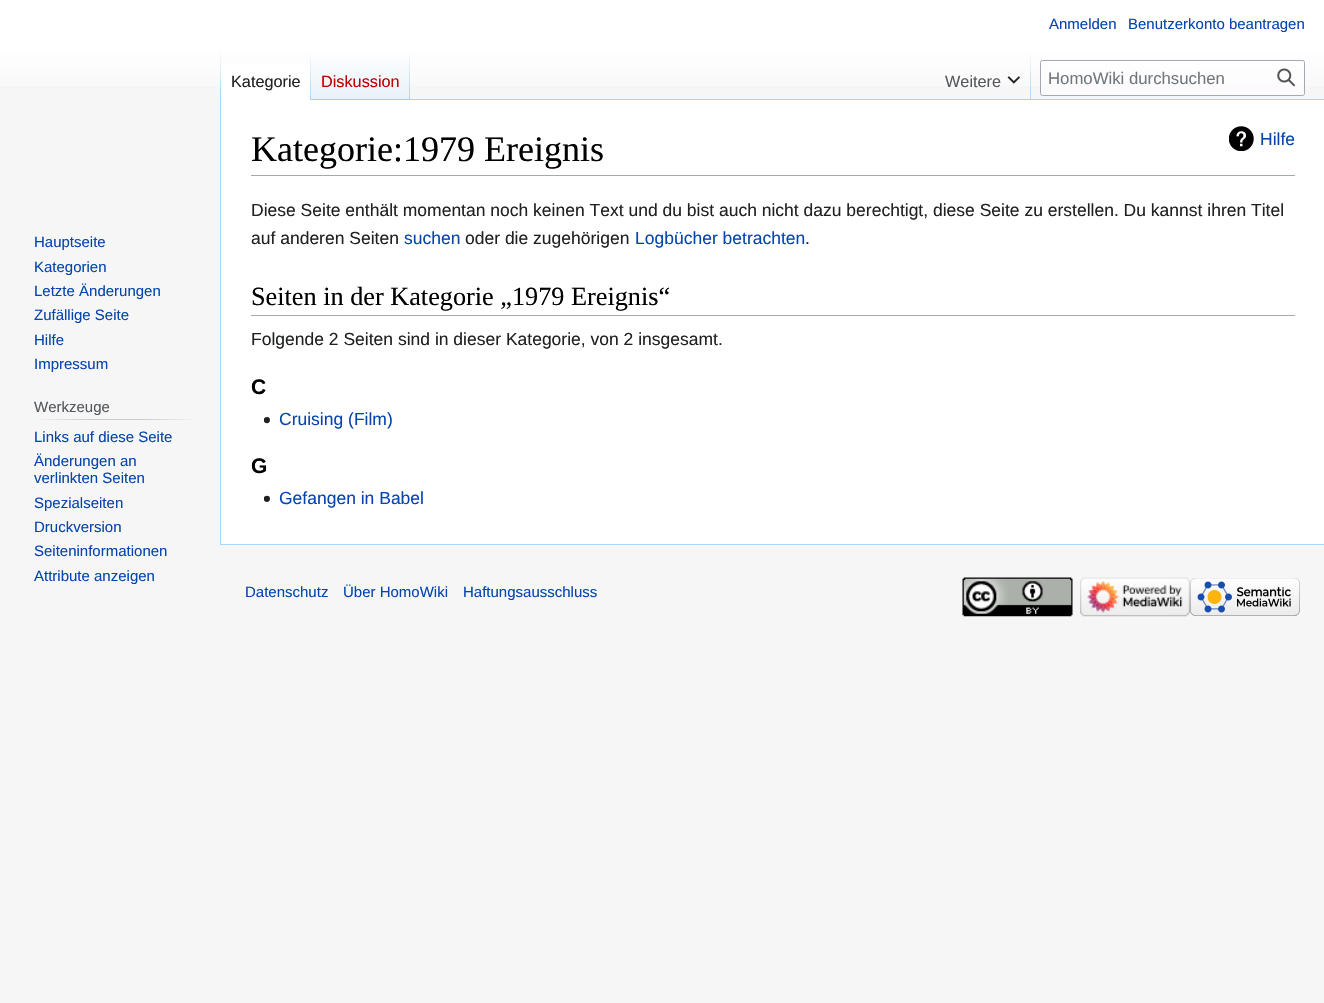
void draw(SkCanvas* canvas) {
  SkPaint paint;
  paint.setAntiAlias(true);
  auto face = [&](const char* family, int weight, float size, bool italic = false) {
    SkFontStyle style(weight, SkFontStyle::kNormal_Width,
      italic ? SkFontStyle::kItalic_Slant : SkFontStyle::kUpright_Slant);
    SkFont result(fontMgr->matchFamilyStyle(family, style), size);
    result.setSubpixel(true);
    return result;
  };
  auto paste = [&](const char* path, float x, float y, float w, float h) {
    auto image = SkImages::DeferredFromEncodedData(SkData::MakeFromFileName(path));
    canvas->drawImageRect(image, SkRect::MakeXYWH(x, y, w, h), SkSamplingOptions());
  };
  canvas->clear(0xfff6f6f6);
  {
    const SkColor colors[] = {0xffffffff, 0xfff6f6f6};
    const float stops[] = {0.5f, 1};
    const SkPoint ends[] = {{663, 0}, {663, 100}};
    paint.setShader(SkGradientShader::MakeLinear(ends, colors, stops, 2, SkTileMode::kClamp));
    paint.setAlpha(255);
  }
  canvas->drawRect(SkRect::MakeXYWH(0, 0, 1324, 86), paint);
  paint.setShader(nullptr);
  paint.setColor(0xffa7d7f9);
  canvas->drawRect(SkRect::MakeXYWH(220, 544, 1104, 1), paint);
  canvas->drawRect(SkRect::MakeXYWH(220, 99, 1, 446), paint);
  {
    const SkColor colors[] = {0x00a7d7f9, 0xffa7d7f9};
    const float stops[] = {0, 1};
    const SkPoint ends[] = {{221, 50}, {221, 100}};
    paint.setShader(SkGradientShader::MakeLinear(ends, colors, stops, 2, SkTileMode::kClamp));
    paint.setAlpha(255);
  }
  canvas->drawRect(SkRect::MakeXYWH(220, 50, 1, 50), paint);
  paint.setShader(nullptr);
  paint.setColor(0xffffffff);
  canvas->drawRect(SkRect::MakeXYWH(221, 64, 89, 36), paint);
  {
    const SkColor colors[] = {0xffffffff, 0xffa7d7f9};
    const float stops[] = {0, 1};
    const SkPoint ends[] = {{311, 50}, {311, 100}};
    paint.setShader(SkGradientShader::MakeLinear(ends, colors, stops, 2, SkTileMode::kClamp));
    paint.setAlpha(255);
  }
  canvas->drawRect(SkRect::MakeXYWH(310, 50, 1, 50), paint);
  {
    const SkColor colors[] = {0xff77c1f6, 0xffe8f2f8, 0xffffffff};
    const float stops[] = {0, 0.03f, 1};
    const SkPoint ends[] = {{361, 100}, {361, 50}};
    paint.setShader(SkGradientShader::MakeLinear(ends, colors, stops, 3, SkTileMode::kClamp));
    paint.setAlpha(255);
  }
  canvas->drawRect(SkRect::MakeXYWH(311, 57, 99, 43), paint);
  {
    const SkColor colors[] = {0x00a7d7f9, 0xffa7d7f9};
    const float stops[] = {0, 1};
    const SkPoint ends[] = {{409, 50}, {409, 100}};
    paint.setShader(SkGradientShader::MakeLinear(ends, colors, stops, 2, SkTileMode::kClamp));
    paint.setAlpha(255);
  }
  canvas->drawRect(SkRect::MakeXYWH(409, 50, 1, 50), paint);
  paint.setShader(nullptr);
  paint.setColor(0xffa7d7f9);
  canvas->drawRect(SkRect::MakeXYWH(410, 99, 914, 1), paint);
  {
    const SkColor colors[] = {0x00a7d7f9, 0xffa7d7f9};
    const float stops[] = {0, 1};
    const SkPoint ends[] = {{1031, 50}, {1031, 100}};
    paint.setShader(SkGradientShader::MakeLinear(ends, colors, stops, 2, SkTileMode::kClamp));
    paint.setAlpha(255);
  }
  canvas->drawRect(SkRect::MakeXYWH(1030, 50, 1, 50), paint);
  paste("img/1.png", 1007, 76, 13, 8);
  paint.setShader(nullptr);
  paint.setColor(0x80ffffff);
  canvas->drawRoundRect(SkRect::MakeXYWH(1040.5f, 60.5f, 264, 35), 2, 2, paint);
  paint.setStroke(true);
  paint.setStrokeWidth(1);
  paint.setColor(0xffa2a9b1);
  canvas->drawRoundRect(SkRect::MakeXYWH(1040.5f, 60.5f, 264, 35), 2, 2, paint);
  paste("img/2.png", 1277, 68, 19, 19);
  paint.setStroke(false);
  {
    const SkColor colors[] = {0xfff6f6f6, 0xffc8ccd1, 0xffc8ccd1, 0xfff6f6f6};
    const float stops[] = {0, 0.33f, 0.66f, 1};
    const SkPoint ends[] = {{34, 419}, {198, 419}};
    paint.setShader(SkGradientShader::MakeLinear(ends, colors, stops, 4, SkTileMode::kClamp));
    paint.setAlpha(255);
  }
  canvas->drawRect(SkRect::MakeXYWH(34, 419, 164, 1), paint);
  paint.setShader(nullptr);
  paint.setColor(0xffffffff);
  canvas->drawRect(SkRect::MakeXYWH(221, 100, 1103, 444), paint);
  paint.setColor(0xffa2a9b1);
  canvas->drawRect(SkRect::MakeXYWH(251, 175, 1044, 1), paint);
  paste("img/3.png", 1229, 126, 25, 25);
  canvas->drawRect(SkRect::MakeXYWH(251, 315, 1044, 1), paint);
  paste("img/4.png", 264, 417, 6, 7);
  paste("img/5.png", 264, 495, 6, 7);
  paste("img/6.png", 962, 577, 111, 40);
  paste("img/7.png", 1080, 577, 110, 40);
  paste("img/8.png", 1190, 578, 110, 38);
  auto f0 = face("Liberation Sans", 400, 15);
  paint.setColor(0xff0645ad);
  canvas->drawString("Anmelden", 1049, 29, f0, paint);
  canvas->drawString("Benutzerkonto beantragen", 1128, 29, f0, paint);
  auto f1 = face("Liberation Sans", 400, 16.25f);
  paint.setColor(0xff202122);
  canvas->drawString("Kategorie", 231, 87, f1, paint);
  paint.setColor(0xffba0000);
  canvas->drawString("Diskussion", 321, 87, f1, paint);
  paint.setColor(0xff54595d);
  canvas->drawString("Weitere", 945, 87, f1, paint);
  auto f2 = face("Liberation Sans", 400, 16.75f);
  paint.setColor(0xff72777d);
  canvas->drawString("HomoWiki durchsuchen", 1048, 84, f2, paint);
  paint.setColor(0xff0645ad);
  {
    const struct { const char* s; float x, y; } items[] = {
      {"Hauptseite", 34, 247},
      {"Kategorien", 34, 272},
      {"Letzte Änderungen", 34, 296},
      {"Zufällige Seite", 34, 320},
      {"Hilfe", 34, 345},
      {"Impressum", 34, 369},
    };
    for (auto [s, x, y] : items) {
      canvas->drawString(s, x, y, f0, paint);
    }
  }
  paint.setColor(0xff54595d);
  canvas->drawString("Werkzeuge", 34, 412, f0, paint);
  paint.setColor(0xff0645ad);
  {
    const struct { const char* s; float x, y; } items[] = {
      {"Links auf diese Seite", 34, 442},
      {"Änderungen an", 34, 466},
      {"verlinkten Seiten", 34, 483},
      {"Spezialseiten", 34, 508},
      {"Druckversion", 34, 532},
      {"Seiteninformationen", 34, 556},
      {"Attribute anzeigen", 34, 581},
    };
    for (auto [s, x, y] : items) {
      canvas->drawString(s, x, y, f0, paint);
    }
  }
  auto f3 = face("Liberation Serif", 400, 36);
  paint.setColor(0xff000000);
  canvas->drawString("Kategorie:1979 Ereignis", 251, 161, f3, paint);
  auto f4 = face("Liberation Sans", 400, 17.5f);
  paint.setColor(0xff0645ad);
  canvas->drawString("Hilfe", 1260, 145, f4, paint);
  paint.setColor(0xff202122);
  canvas->drawString("Diese Seite enthält momentan noch keinen Text und du bist auch nicht dazu berechtigt, diese Seite zu erstellen. Du kannst ihren Titel", 251, 216, f4, paint);
  canvas->drawString("auf anderen Seiten", 251, 244, f4, paint);
  paint.setColor(0xff0645ad);
  canvas->drawString("suchen", 404, 244, f4, paint);
  paint.setColor(0xff202122);
  canvas->drawString("oder die zugehörigen", 465, 244, f4, paint);
  paint.setColor(0xff0645ad);
  canvas->drawString("Logbücher betrachten", 635, 244, f4, paint);
  paint.setColor(0xff202122);
  canvas->drawString(".", 805, 244, f4, paint);
  auto f5 = face("Liberation Serif", 400, 26.25f);
  paint.setColor(0xff000000);
  canvas->drawString("Seiten in der Kategorie „1979 Ereignis“", 251, 305, f5, paint);
  paint.setColor(0xff202122);
  canvas->drawString("Folgende 2 Seiten sind in dieser Kategorie, von 2 insgesamt.", 251, 345, f4, paint);
  auto f6 = face("Liberation Sans", 700, 21);
  paint.setColor(0xff000000);
  canvas->drawString("C", 251, 394, f6, paint);
  paint.setColor(0xff0645ad);
  canvas->drawString("Cruising (Film)", 279, 425, f4, paint);
  paint.setColor(0xff000000);
  canvas->drawString("G", 251, 473, f6, paint);
  paint.setColor(0xff0645ad);
  canvas->drawString("Gefangen in Babel", 279, 504, f4, paint);
  {
    const struct { const char* s; float x, y; } items[] = {
      {"Datenschutz", 245, 597},
      {"Über HomoWiki", 343, 597},
      {"Haftungsausschluss", 463, 597},
    };
    for (auto [s, x, y] : items) {
      canvas->drawString(s, x, y, f0, paint);
    }
  }
}
